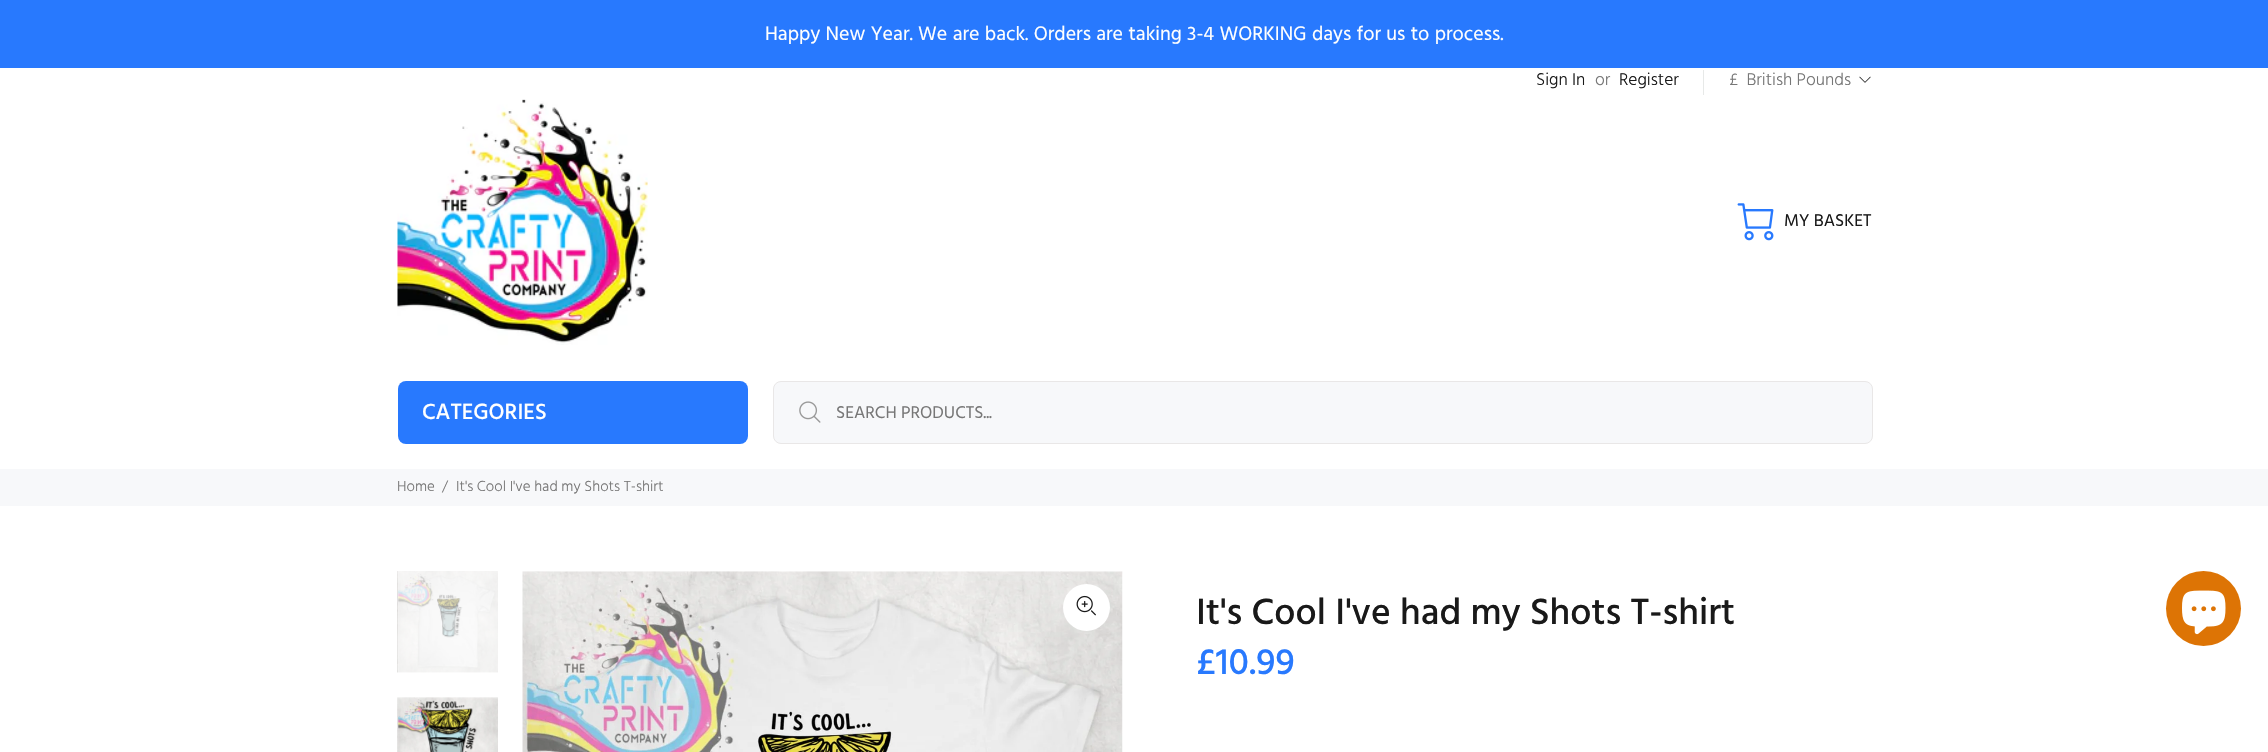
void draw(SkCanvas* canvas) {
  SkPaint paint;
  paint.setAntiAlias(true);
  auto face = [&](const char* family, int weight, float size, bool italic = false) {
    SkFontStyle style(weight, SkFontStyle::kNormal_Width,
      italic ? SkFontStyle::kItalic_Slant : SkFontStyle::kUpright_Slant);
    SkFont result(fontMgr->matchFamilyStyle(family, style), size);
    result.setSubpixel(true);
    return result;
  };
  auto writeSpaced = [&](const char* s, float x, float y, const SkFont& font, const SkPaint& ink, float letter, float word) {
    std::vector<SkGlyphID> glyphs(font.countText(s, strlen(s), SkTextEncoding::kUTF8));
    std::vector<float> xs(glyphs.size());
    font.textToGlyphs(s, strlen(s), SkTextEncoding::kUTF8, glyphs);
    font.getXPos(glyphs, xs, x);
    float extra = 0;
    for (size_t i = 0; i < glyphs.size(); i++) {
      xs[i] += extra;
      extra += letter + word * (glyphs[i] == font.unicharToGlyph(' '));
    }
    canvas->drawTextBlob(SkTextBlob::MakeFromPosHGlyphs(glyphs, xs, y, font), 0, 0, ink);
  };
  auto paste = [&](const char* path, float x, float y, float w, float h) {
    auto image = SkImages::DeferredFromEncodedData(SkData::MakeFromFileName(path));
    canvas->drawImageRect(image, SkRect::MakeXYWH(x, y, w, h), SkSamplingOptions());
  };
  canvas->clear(0xffffffff);
  paint.setColor(0xff2879fe);
  canvas->drawRect(SkRect::MakeXYWH(0, 0, 2268, 68), paint);
  paint.setColor(0xffe7e9e8);
  canvas->drawRect(SkRect::MakeXYWH(1703, 70, 1, 25), paint);
  paste("img/1.png", 1859, 76, 12, 7);
  paste("img/2.png", 397, 99, 251, 246);
  paste("img/3.png", 1737, 203, 37, 38);
  paint.setColor(0xff2879fe);
  canvas->drawRoundRect(SkRect::MakeXYWH(398, 381, 350, 63), 8, 8, paint);
  paint.setColor(0xfff7f8fa);
  canvas->drawRoundRect(SkRect::MakeXYWH(773.5f, 381.5f, 1099, 62), 7.5f, 7.5f, paint);
  paint.setStroke(true);
  paint.setStrokeWidth(1);
  paint.setColor(0xffe9e7e7);
  canvas->drawRoundRect(SkRect::MakeXYWH(773.5f, 381.5f, 1099, 62), 7.5f, 7.5f, paint);
  paste("img/4.png", 799, 401, 22, 22);
  paint.setStroke(false);
  paint.setColor(0xfff7f8fa);
  canvas->drawRect(SkRect::MakeXYWH(0, 469, 2268, 37), paint);
  paste("img/5.png", 397, 571, 101, 102);
  paste("img/6.png", 397, 697, 101, 55);
  paste("img/7.png", 522, 571, 601, 181);
  paint.setColor(0xffffffff);
  canvas->drawCircle(1086.5f, 607.5f, 23.5f, paint);
  paste("img/8.png", 1076, 595, 20, 21);
  paint.setColor(0xffdd7405);
  canvas->drawCircle(2203.5f, 608.5f, 37.5f, paint);
  paste("img/9.png", 2182, 590, 44, 45);
  auto f0 = face("Hind", 400, 20);
  paint.setColor(0xffffffff);
  writeSpaced("Happy New Year. We are back. Orders are taking 3-4 WORKING days for us to process.", 765, 40, f0, paint, 0, 0.5f);
  auto f1 = face("Hind", 300, 17.5f);
  paint.setColor(0xff191919);
  canvas->drawString("Sign In", 1536, 85, f1, paint);
  paint.setColor(0xff777777);
  canvas->drawString("or", 1595, 85, f1, paint);
  paint.setColor(0xff191919);
  canvas->drawString("Register", 1619, 85, f1, paint);
  paint.setColor(0xff777777);
  canvas->drawString("£  British Pounds", 1729, 85, f1, paint);
  auto f2 = face("Hind", 400, 17.5f);
  paint.setColor(0xff191919);
  canvas->drawString("MY BASKET", 1784, 226, f2, paint);
  auto f3 = face("Hind", 500, 22.5f);
  paint.setColor(0xffffffff);
  canvas->drawString("CATEGORIES", 422, 419, f3, paint);
  paint.setColor(0xff777777);
  canvas->drawString("SEARCH PRODUCTS...", 836, 418, f2, paint);
  auto f4 = face("Hind", 300, 15);
  {
    const struct { const char* s; float x, y; } items[] = {
      {"Home", 397, 491},
      {"/", 442, 491},
      {"It's Cool I've had my Shots T-shirt", 456, 491},
    };
    for (auto [s, x, y] : items) {
      canvas->drawString(s, x, y, f4, paint);
    }
  }
  auto f5 = face("Hind", 500, 37.5f);
  paint.setColor(0xff191919);
  writeSpaced("It's Cool I've had my Shots T-shirt", 1196, 624, f5, paint, 0.05f, 0);
  paint.setColor(0xff2879fe);
  canvas->drawString("£10.99", 1196, 674, f5, paint);
}
